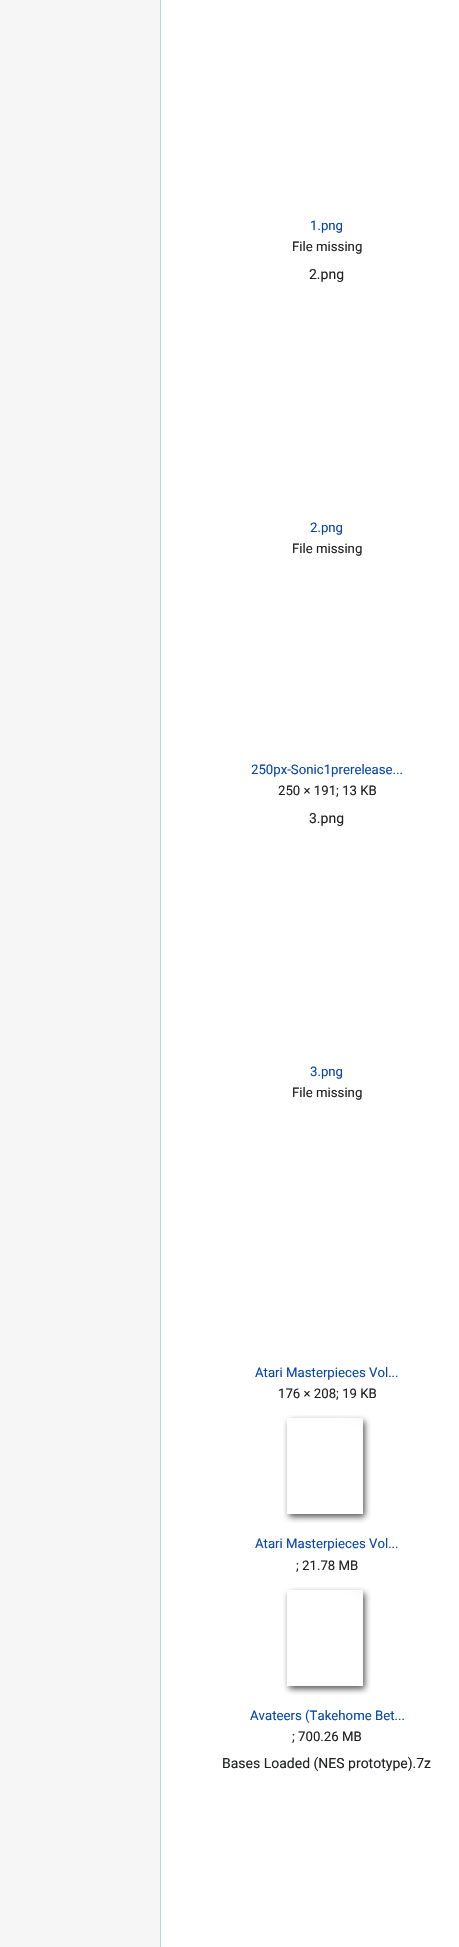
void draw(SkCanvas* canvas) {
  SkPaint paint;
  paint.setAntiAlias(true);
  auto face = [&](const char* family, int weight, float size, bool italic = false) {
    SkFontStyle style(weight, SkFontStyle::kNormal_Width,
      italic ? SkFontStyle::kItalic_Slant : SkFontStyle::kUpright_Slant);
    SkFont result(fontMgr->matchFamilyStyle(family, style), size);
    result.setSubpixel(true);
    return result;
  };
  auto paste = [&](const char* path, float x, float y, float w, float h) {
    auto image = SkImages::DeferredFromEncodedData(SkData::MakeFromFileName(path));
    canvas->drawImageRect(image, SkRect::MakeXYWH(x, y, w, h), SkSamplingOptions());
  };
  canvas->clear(0xfff6f6f6);
  paint.setColor(0xffffffff);
  canvas->drawRect(SkRect::MakeXYWH(161, 0, 298, 1947), paint);
  paint.setColor(0xffa7d7f9);
  canvas->drawRect(SkRect::MakeXYWH(160, 0, 1, 1947), paint);
  paste("img/1.png", 283, 1415, 88, 108);
  paste("img/1.png", 283, 1587, 88, 108);
  auto f0 = face("Roboto", 400, 13.2f);
  paint.setColor(0xff0645ad);
  canvas->drawString("1.png", 310, 230, f0, paint);
  paint.setColor(0xff202122);
  canvas->drawString("File missing", 292, 251, f0, paint);
  auto f1 = face("Roboto", 400, 14);
  canvas->drawString("2.png", 309, 279, f1, paint);
  paint.setColor(0xff0645ad);
  canvas->drawString("2.png", 310, 532, f0, paint);
  paint.setColor(0xff202122);
  canvas->drawString("File missing", 292, 553, f0, paint);
  paint.setColor(0xff0645ad);
  canvas->drawString("250px-Sonic1prerelease...", 251, 774, f0, paint);
  paint.setColor(0xff202122);
  canvas->drawString("250 × 191; 13 KB", 278, 795, f0, paint);
  canvas->drawString("3.png", 309, 823, f1, paint);
  paint.setColor(0xff0645ad);
  canvas->drawString("3.png", 310, 1076, f0, paint);
  paint.setColor(0xff202122);
  canvas->drawString("File missing", 292, 1097, f0, paint);
  paint.setColor(0xff0645ad);
  canvas->drawString("Atari Masterpieces Vol...", 255, 1377, f0, paint);
  paint.setColor(0xff202122);
  canvas->drawString("176 × 208; 19 KB", 278, 1398, f0, paint);
  paint.setColor(0xff0645ad);
  canvas->drawString("Atari Masterpieces Vol...", 255, 1548, f0, paint);
  paint.setColor(0xff202122);
  canvas->drawString("; 21.78 MB", 296, 1570, f0, paint);
  paint.setColor(0xff0645ad);
  canvas->drawString("Avateers (Takehome Bet...", 250, 1720, f0, paint);
  paint.setColor(0xff202122);
  canvas->drawString("; 700.26 MB", 292, 1741, f0, paint);
  canvas->drawString("Bases Loaded (NES prototype).7z", 222, 1768, f1, paint);
}
